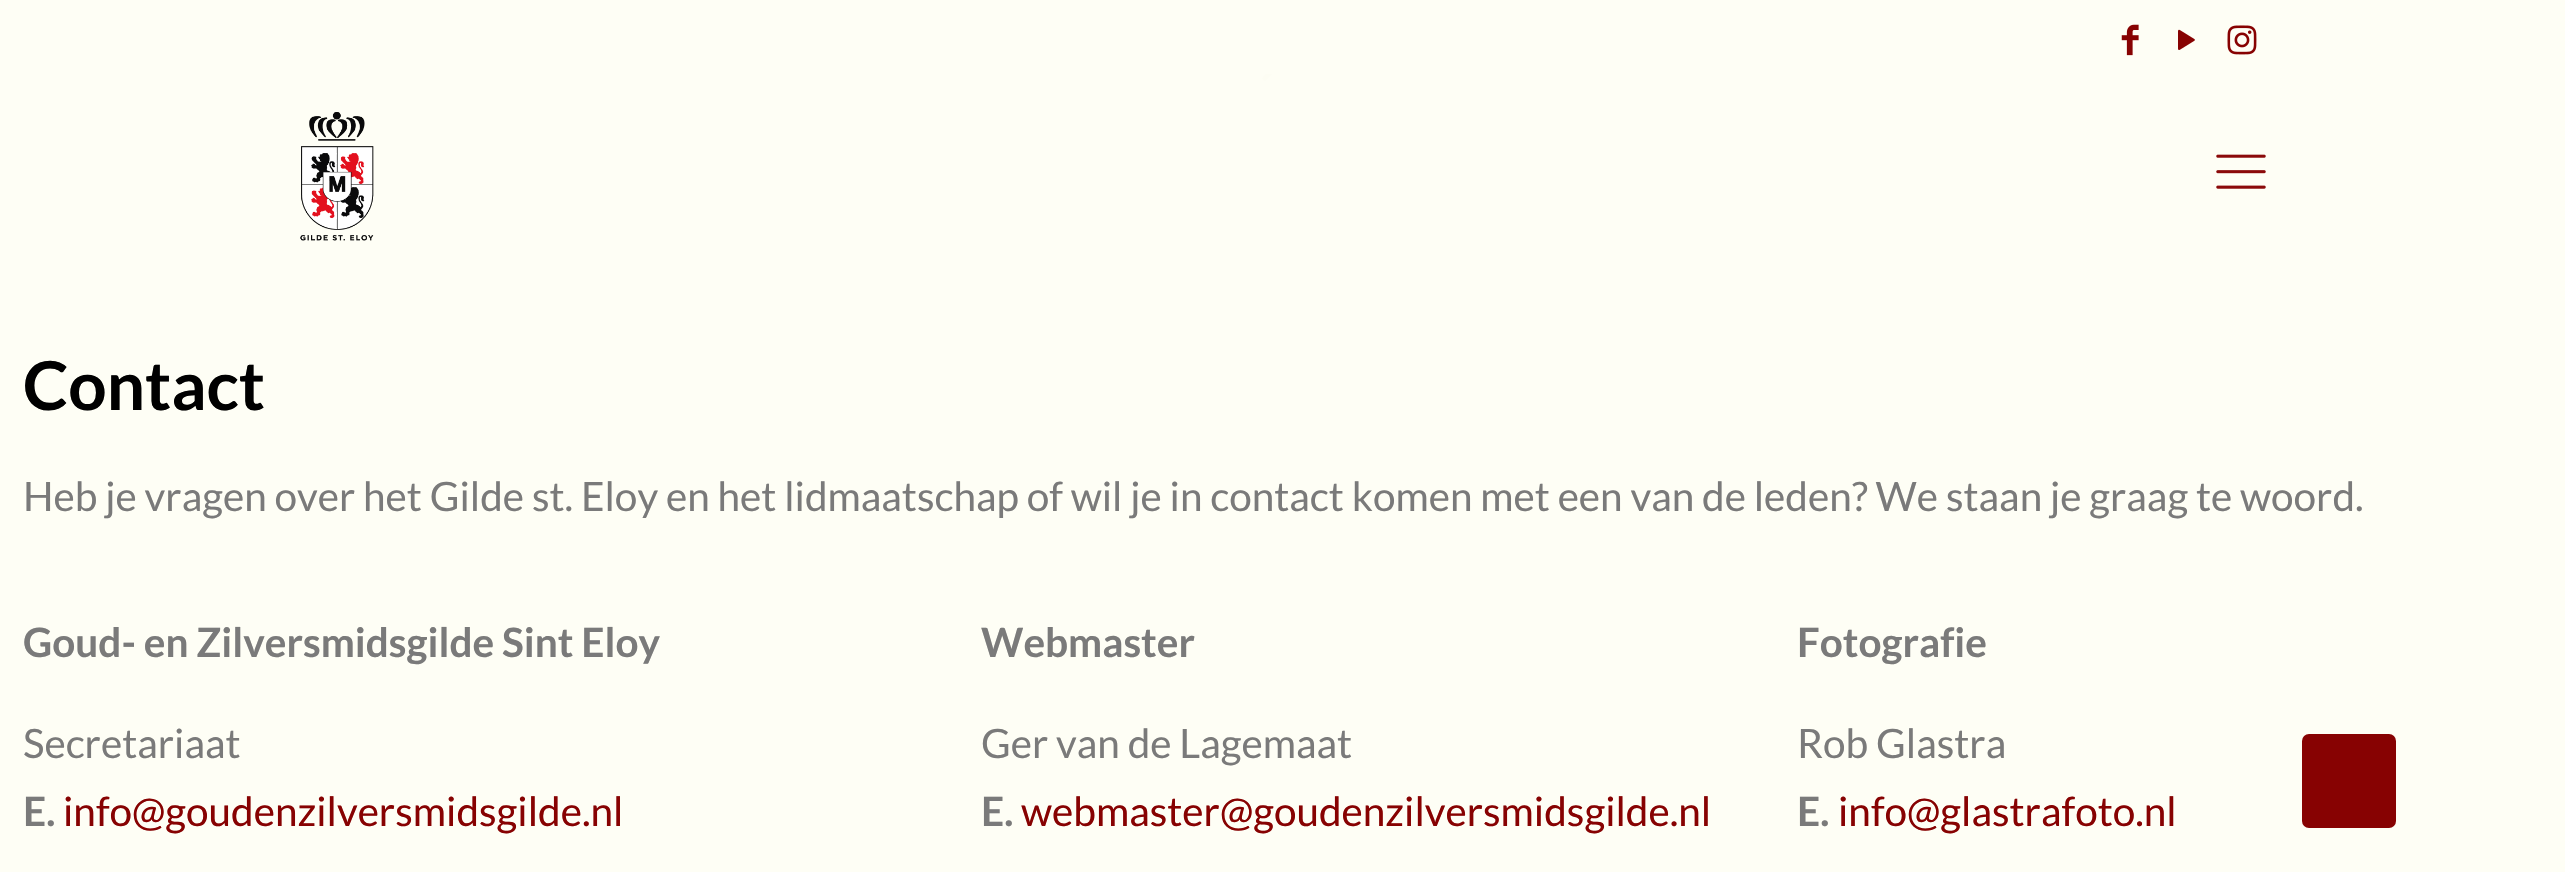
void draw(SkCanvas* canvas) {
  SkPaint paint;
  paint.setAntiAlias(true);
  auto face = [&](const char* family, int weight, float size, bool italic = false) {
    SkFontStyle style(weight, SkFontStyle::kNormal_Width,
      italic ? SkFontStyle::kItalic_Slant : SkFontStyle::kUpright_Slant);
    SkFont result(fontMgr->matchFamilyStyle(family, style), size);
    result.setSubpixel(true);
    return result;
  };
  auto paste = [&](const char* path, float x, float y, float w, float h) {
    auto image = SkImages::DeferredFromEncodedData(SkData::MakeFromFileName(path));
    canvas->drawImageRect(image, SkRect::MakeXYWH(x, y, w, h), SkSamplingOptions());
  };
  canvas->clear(0xfffefef5);
  paste("img/1.png", 2121, 24, 18, 32);
  paste("img/2.png", 2178, 29, 17, 21);
  paste("img/3.png", 2227, 25, 30, 30);
  paste("img/6.png", 1262, 74, 10, 7);
  paint.setColor(0xf7fefef5);
  canvas->drawRect(SkRect::MakeXYWH(1262, 74, 10, 7), paint);
  paste("img/4.png", 300, 112, 74, 129);
  paste("img/5.png", 2216, 154, 50, 35);
  paint.setColor(0xff870202);
  canvas->drawRoundRect(SkRect::MakeXYWH(2302, 734, 94, 94), 7, 7, paint);
  auto f0 = face("Lato", 700, 67.5f);
  paint.setColor(0xff000000);
  canvas->drawString("Contact", 23, 410, f0, paint);
  auto f1 = face("Lato", 400, 40.5f);
  paint.setColor(0xff7a7a7a);
  canvas->drawString("Heb je vragen over het Gilde st. Eloy en het lidmaatschap of wil je in contact komen met een van de leden? We staan je graag te woord.", 23, 511, f1, paint);
  auto f2 = face("Lato", 700, 40.5f);
  canvas->drawString("Goud- en Zilversmidsgilde Sint Eloy", 23, 657, f2, paint);
  canvas->drawString("Secretariaat", 23, 758, f1, paint);
  canvas->drawString("E.", 23, 826, f2, paint);
  paint.setColor(0xff870202);
  canvas->drawString("info@goudenzilversmidsgilde.nl", 63, 826, f1, paint);
  paint.setColor(0xff7a7a7a);
  canvas->drawString("Webmaster", 981, 657, f2, paint);
  canvas->drawString("Ger van de Lagemaat", 981, 758, f1, paint);
  canvas->drawString("E.", 981, 826, f2, paint);
  paint.setColor(0xff870202);
  canvas->drawString("webmaster@goudenzilversmidsgilde.nl", 1021, 826, f1, paint);
  paint.setColor(0xff7a7a7a);
  canvas->drawString("Fotografie", 1797, 657, f2, paint);
  canvas->drawString("Rob Glastra", 1797, 758, f1, paint);
  canvas->drawString("E.", 1797, 826, f2, paint);
  paint.setColor(0xff870202);
  canvas->drawString("info@glastrafoto.nl", 1838, 826, f1, paint);
}
